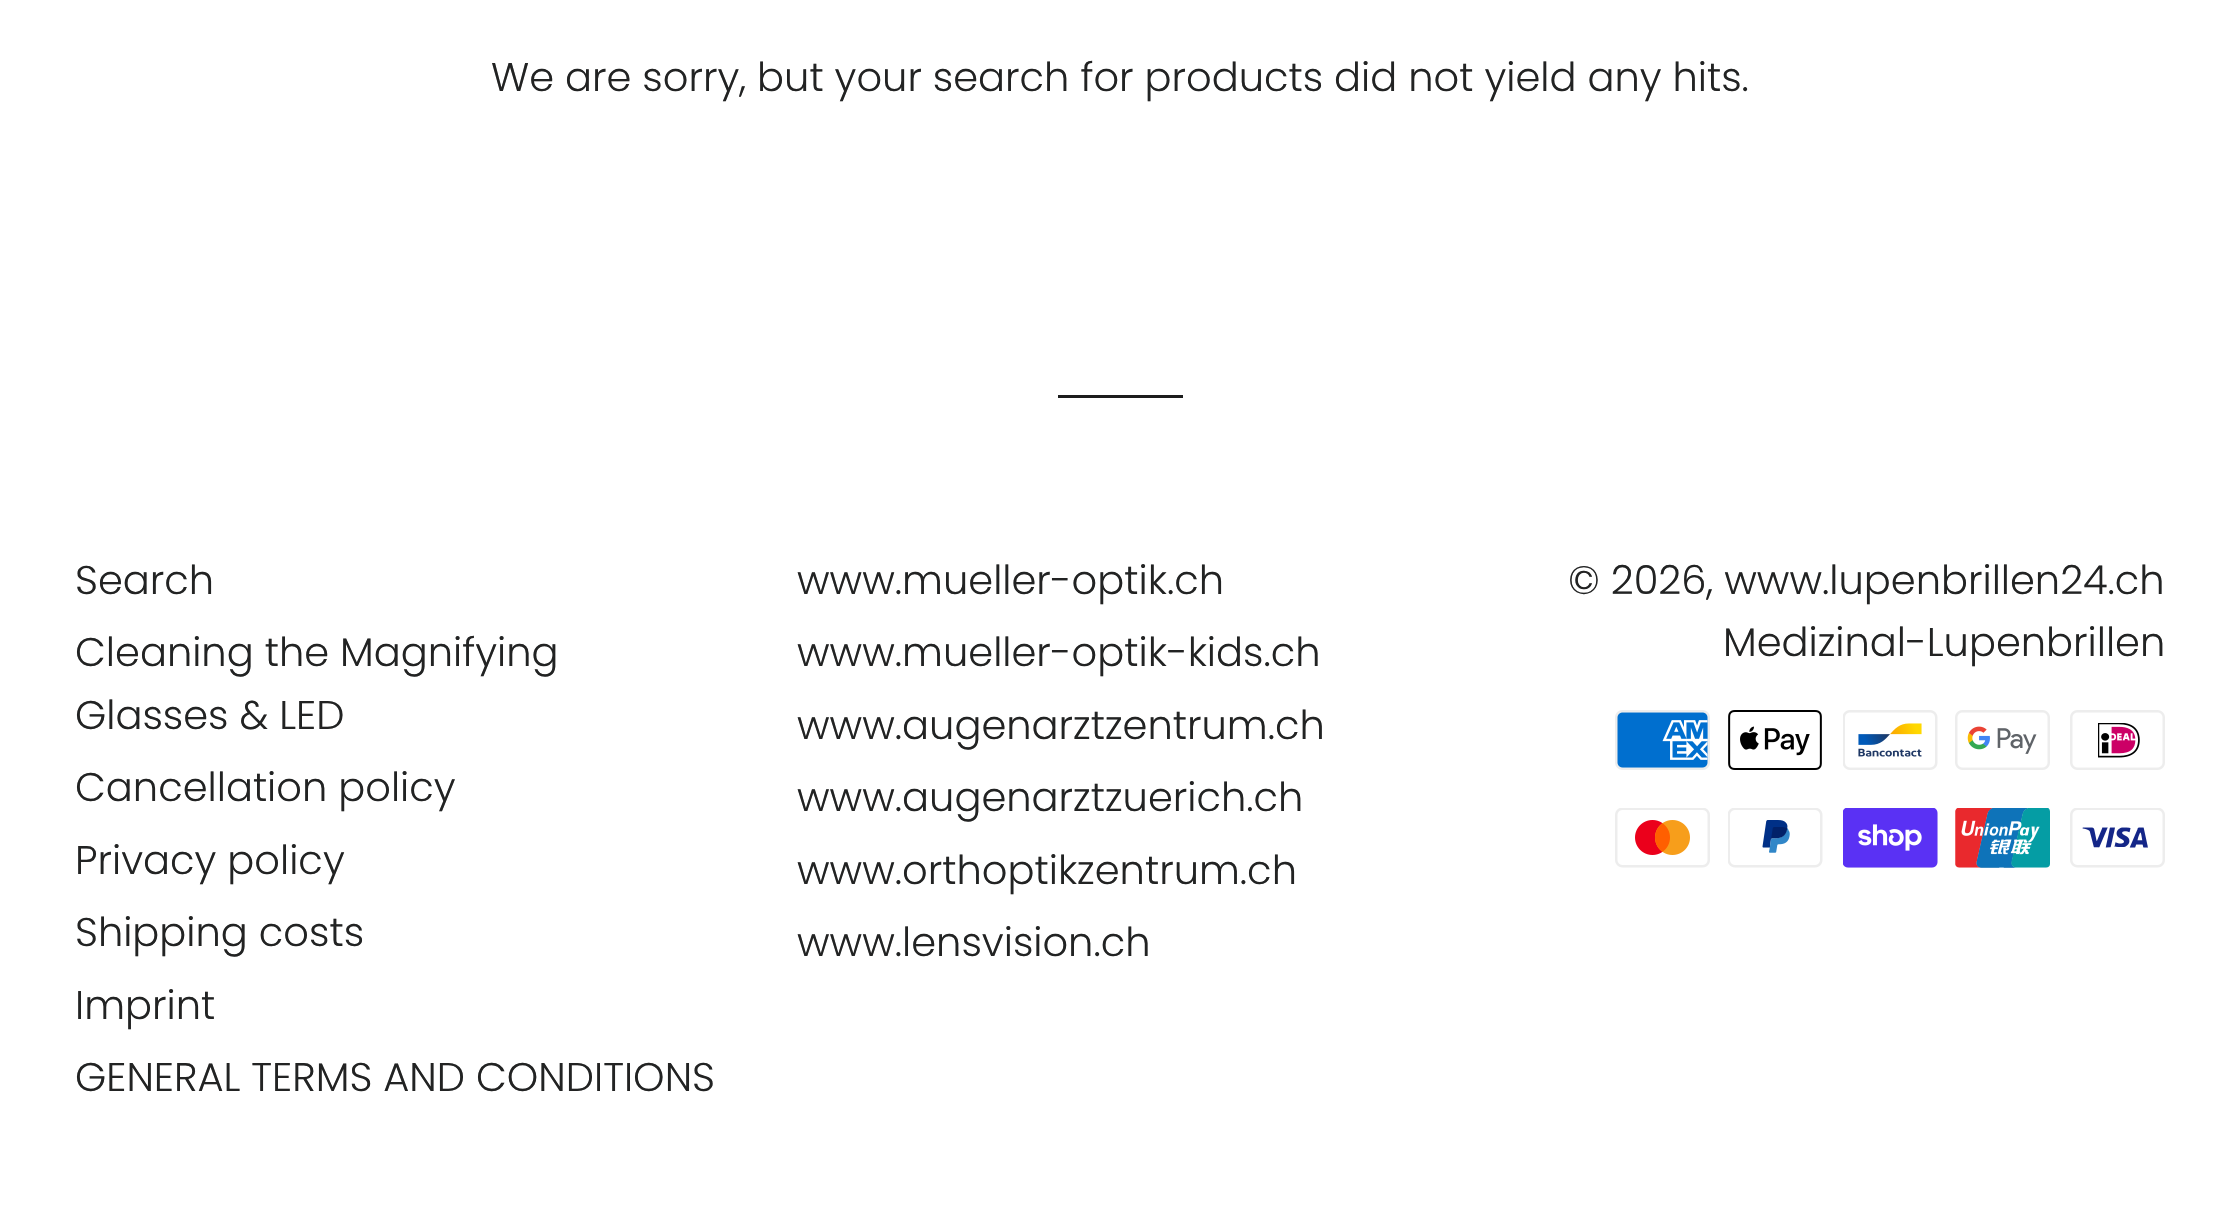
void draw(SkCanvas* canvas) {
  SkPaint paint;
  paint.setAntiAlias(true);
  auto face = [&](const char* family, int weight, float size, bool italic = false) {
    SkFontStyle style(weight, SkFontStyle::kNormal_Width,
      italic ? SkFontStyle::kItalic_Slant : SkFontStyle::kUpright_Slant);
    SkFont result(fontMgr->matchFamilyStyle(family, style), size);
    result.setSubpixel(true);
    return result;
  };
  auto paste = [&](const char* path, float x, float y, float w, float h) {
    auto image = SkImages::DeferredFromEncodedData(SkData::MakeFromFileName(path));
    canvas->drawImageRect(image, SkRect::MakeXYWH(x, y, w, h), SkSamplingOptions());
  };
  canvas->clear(0xffffffff);
  paint.setColor(0xff1c1d1d);
  canvas->drawRect(SkRect::MakeXYWH(1058, 395, 125, 3), paint);
  paste("img/1.png", 1615, 710, 95, 60);
  paste("img/2.png", 1728, 710, 94, 60);
  paste("img/3.png", 1843, 710, 95, 60);
  paste("img/4.png", 1955, 710, 95, 60);
  paste("img/5.png", 2070, 710, 95, 60);
  paste("img/6.png", 1615, 808, 95, 60);
  paste("img/7.png", 1728, 808, 95, 60);
  paste("img/8.png", 1843, 808, 95, 60);
  paste("img/9.png", 1955, 808, 95, 60);
  paste("img/10.png", 2070, 808, 95, 60);
  auto f0 = face("Poppins", 300, 40);
  paint.setColor(0xff222323);
  {
    const struct { const char* s; float x, y; } items[] = {
      {"We are sorry, but your search for products did not yield any hits.", 491, 91},
      {"Search", 75, 594},
      {"Cleaning the Magnifying", 75, 666},
      {"Glasses & LED", 75, 729},
      {"Cancellation policy", 75, 801},
      {"Privacy policy", 75, 874},
      {"Shipping costs", 75, 946},
      {"Imprint", 75, 1019},
      {"GENERAL TERMS AND CONDITIONS", 75, 1091},
      {"www.mueller-optik.ch", 797, 594},
      {"www.mueller-optik-kids.ch", 797, 666},
      {"www.augenarztzentrum.ch", 797, 739},
      {"www.augenarztzuerich.ch", 797, 811},
      {"www.orthoptikzentrum.ch", 797, 884},
      {"www.lensvision.ch", 797, 956},
      {"© 2026, www.lupenbrillen24.ch", 1568, 594},
      {"Medizinal-Lupenbrillen", 1723, 656},
    };
    for (auto [s, x, y] : items) {
      canvas->drawString(s, x, y, f0, paint);
    }
  }
}
